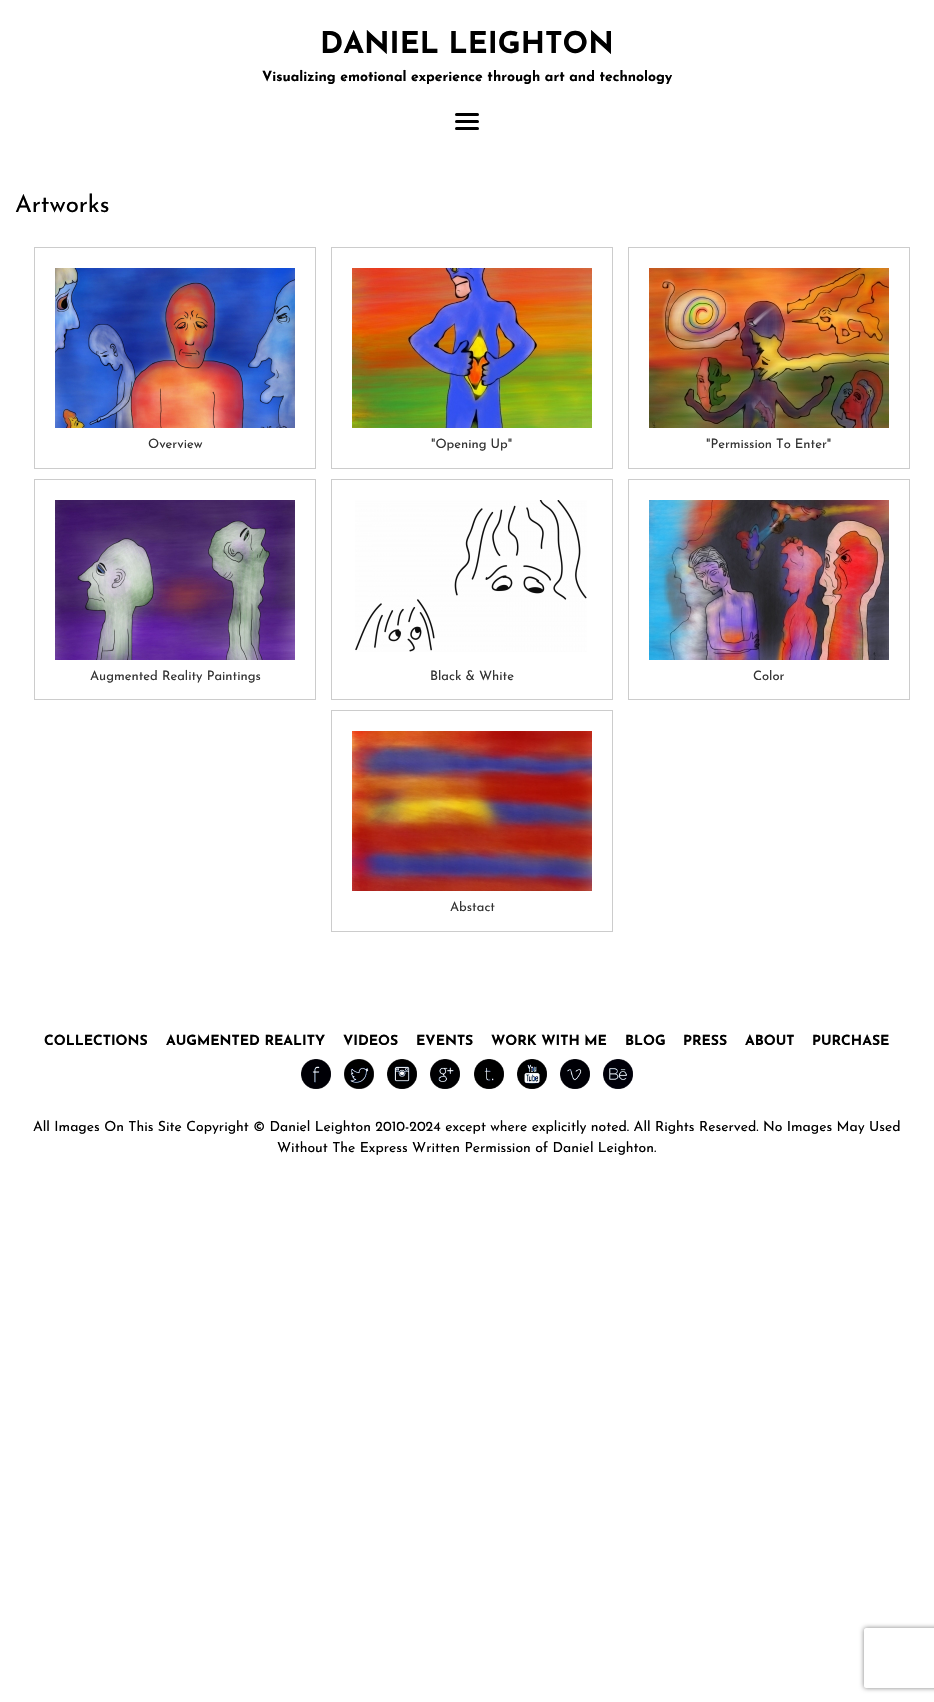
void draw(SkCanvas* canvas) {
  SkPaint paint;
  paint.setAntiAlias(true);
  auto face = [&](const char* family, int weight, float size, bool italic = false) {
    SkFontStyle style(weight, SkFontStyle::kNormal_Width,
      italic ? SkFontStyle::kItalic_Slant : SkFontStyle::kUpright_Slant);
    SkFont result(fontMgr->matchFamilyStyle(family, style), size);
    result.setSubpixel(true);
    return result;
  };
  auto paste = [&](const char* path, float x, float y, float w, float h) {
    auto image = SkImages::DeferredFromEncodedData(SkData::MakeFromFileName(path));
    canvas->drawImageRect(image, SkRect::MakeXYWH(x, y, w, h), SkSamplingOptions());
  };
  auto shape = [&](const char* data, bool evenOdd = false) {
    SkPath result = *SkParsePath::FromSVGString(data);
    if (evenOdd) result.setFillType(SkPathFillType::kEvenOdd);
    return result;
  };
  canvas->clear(0xffffffff);
  paint.setColor(0xff000000);
  canvas->drawRoundRect(SkRect::MakeXYWH(455, 113, 24, 3), 1.5f, 1.5f, paint);
  canvas->drawRoundRect(SkRect::MakeXYWH(455, 120, 24, 3), 1.5f, 1.5f, paint);
  canvas->drawRoundRect(SkRect::MakeXYWH(455, 127, 24, 3), 1.5f, 1.5f, paint);
  paint.setStroke(true);
  paint.setStrokeWidth(1);
  paint.setColor(0xffcccccc);
  canvas->drawRect(SkRect::MakeXYWH(34.5f, 247.5f, 281, 221), paint);
  paste("img/1.png", 55, 268, 240, 160);
  canvas->drawRect(SkRect::MakeXYWH(331.5f, 247.5f, 281, 221), paint);
  paste("img/2.png", 352, 268, 240, 160);
  canvas->drawRect(SkRect::MakeXYWH(628.5f, 247.5f, 281, 221), paint);
  paste("img/3.png", 649, 268, 240, 160);
  canvas->drawRect(SkRect::MakeXYWH(34.5f, 479.5f, 281, 220), paint);
  paste("img/4.png", 55, 500, 240, 160);
  canvas->drawRect(SkRect::MakeXYWH(331.5f, 479.5f, 281, 220), paint);
  paste("img/5.png", 355, 500, 232, 152);
  canvas->drawRect(SkRect::MakeXYWH(628.5f, 479.5f, 281, 220), paint);
  paste("img/6.png", 649, 500, 240, 160);
  canvas->drawRect(SkRect::MakeXYWH(331.5f, 710.5f, 281, 221), paint);
  paste("img/7.png", 352, 731, 240, 160);
  paste("img/8.png", 301, 1059, 30, 30);
  paste("img/9.png", 344, 1059, 30, 30);
  paste("img/10.png", 387, 1059, 30, 30);
  paste("img/11.png", 430, 1059, 30, 30);
  paste("img/12.png", 474, 1059, 30, 30);
  paste("img/13.png", 517, 1059, 30, 30);
  paste("img/14.png", 560, 1059, 30, 30);
  paste("img/15.png", 603, 1059, 30, 30);
  canvas->save();
  canvas->clipPath(shape("M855 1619H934V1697H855ZM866 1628H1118C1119 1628 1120 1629 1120 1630V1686C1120 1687 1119 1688 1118 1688H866C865 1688 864 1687 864 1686V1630C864 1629 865 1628 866 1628Z", true), true);
  paint.setStroke(false);
  paint.setColor(0xff808080);
  paint.setMaskFilter(SkMaskFilter::MakeBlur(kNormal_SkBlurStyle, 2.5f));
  canvas->drawRoundRect(SkRect::MakeXYWH(864, 1628, 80, 60), 2, 2, paint);
  paint.setMaskFilter(nullptr);
  canvas->restore();
  auto f0 = face("Josefin Sans", 700, 30);
  paint.setColor(0xff000000);
  canvas->drawString("DANIEL LEIGHTON", 320, 53, f0, paint);
  auto f1 = face("Josefin Sans", 700, 14);
  canvas->drawString("Visualizing emotional experience through art and technology", 262, 81, f1, paint);
  auto f2 = face("Josefin Sans", 400, 24);
  canvas->drawString("Artworks", 15, 212, f2, paint);
  auto f3 = face("Josefin Sans", 400, 13);
  paint.setColor(0xff333333);
  {
    const struct { const char* s; float x, y; } items[] = {
      {"Overview", 148, 448},
      {"\"Opening Up\"", 431, 448},
      {"\"Permission To Enter\"", 706, 448},
      {"Augmented Reality Paintings", 90, 680},
      {"Black & White", 430, 680},
      {"Color", 753, 680},
      {"Abstact", 450, 911},
    };
    for (auto [s, x, y] : items) {
      canvas->drawString(s, x, y, f3, paint);
    }
  }
  paint.setColor(0xff000000);
  {
    const struct { const char* s; float x, y; } items[] = {
      {"COLLECTIONS", 44, 1045},
      {"AUGMENTED REALITY", 166, 1045},
      {"VIDEOS", 343, 1045},
      {"EVENTS", 416, 1045},
      {"WORK WITH ME", 491, 1045},
      {"BLOG", 625, 1045},
      {"PRESS", 683, 1045},
      {"ABOUT", 745, 1045},
      {"PURCHASE", 812, 1045},
    };
    for (auto [s, x, y] : items) {
      canvas->drawString(s, x, y, f1, paint);
    }
  }
  auto f4 = face("Josefin Sans", 400, 14);
  canvas->drawString("All Images On This Site Copyright © Daniel Leighton 2010-2024 except where explicitly noted. All Rights Reserved. No Images May Used", 33, 1131, f4, paint);
  canvas->drawString("Without The Express Written Permission of Daniel Leighton.", 277, 1152, f4, paint);
}
